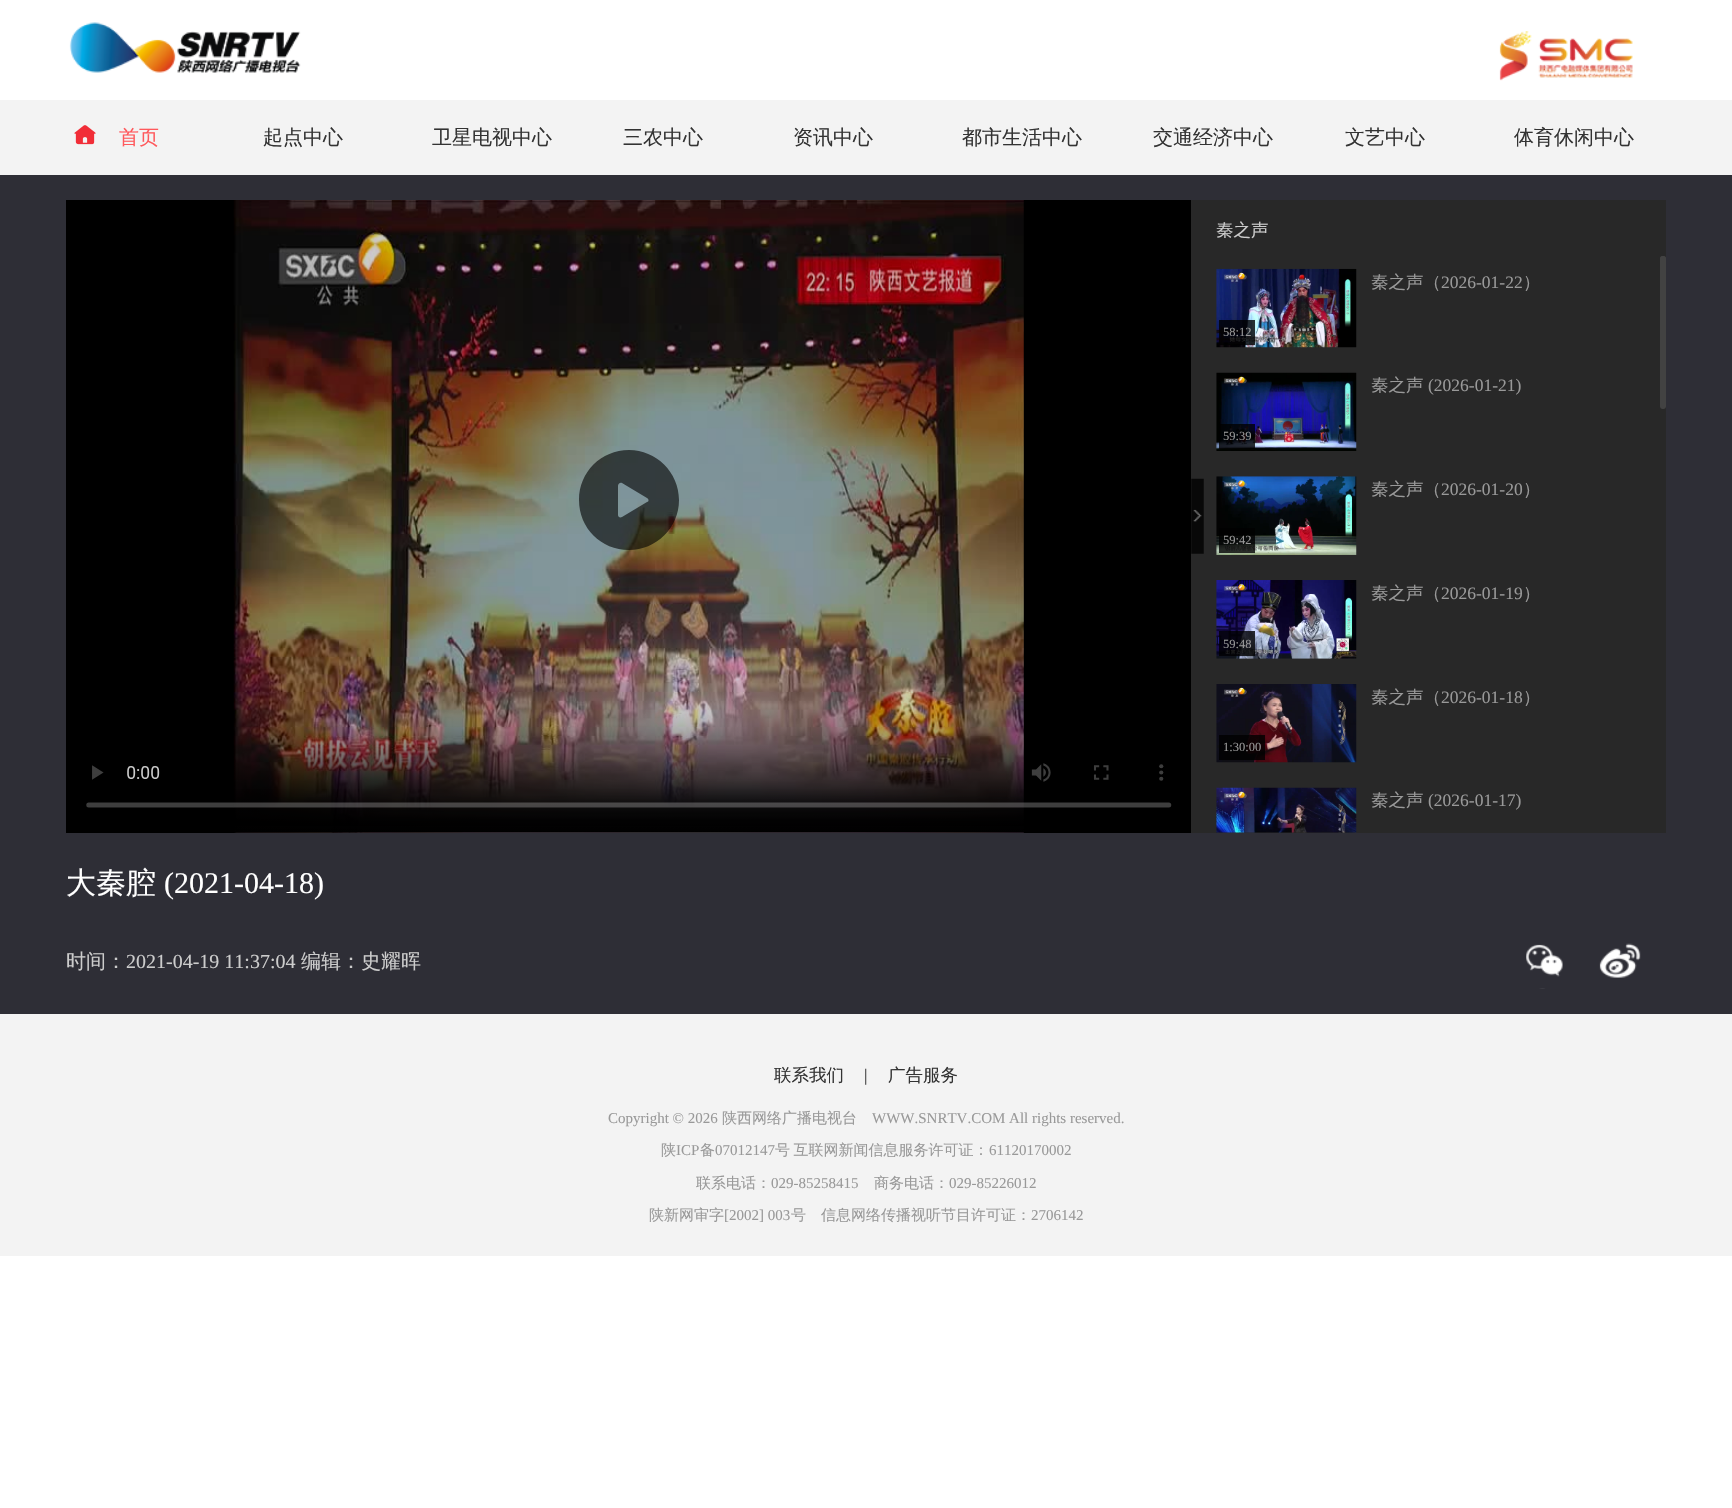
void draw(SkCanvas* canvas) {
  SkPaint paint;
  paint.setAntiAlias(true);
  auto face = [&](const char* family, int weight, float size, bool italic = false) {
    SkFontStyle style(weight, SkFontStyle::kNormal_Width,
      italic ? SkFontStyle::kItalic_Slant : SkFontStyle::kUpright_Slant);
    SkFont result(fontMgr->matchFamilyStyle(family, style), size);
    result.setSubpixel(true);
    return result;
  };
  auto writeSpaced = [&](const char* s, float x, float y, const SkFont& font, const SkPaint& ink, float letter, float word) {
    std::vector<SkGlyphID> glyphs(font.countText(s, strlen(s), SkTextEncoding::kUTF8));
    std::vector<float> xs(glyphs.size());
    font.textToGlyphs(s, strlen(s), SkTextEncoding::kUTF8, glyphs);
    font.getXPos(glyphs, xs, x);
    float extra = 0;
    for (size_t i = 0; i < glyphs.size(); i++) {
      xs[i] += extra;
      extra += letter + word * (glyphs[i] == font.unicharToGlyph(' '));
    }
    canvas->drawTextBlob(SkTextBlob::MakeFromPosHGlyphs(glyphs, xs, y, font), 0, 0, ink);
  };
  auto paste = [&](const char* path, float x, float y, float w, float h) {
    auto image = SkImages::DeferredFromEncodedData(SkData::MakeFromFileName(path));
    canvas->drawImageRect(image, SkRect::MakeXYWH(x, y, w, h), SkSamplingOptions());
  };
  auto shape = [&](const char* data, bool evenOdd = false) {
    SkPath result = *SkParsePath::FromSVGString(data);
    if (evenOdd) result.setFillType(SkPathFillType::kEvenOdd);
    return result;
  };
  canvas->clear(0xffffffff);
  paste("img/1.png", 69, 22, 232, 51);
  paste("img/2.png", 1499, 31, 134, 50);
  paint.setColor(0xfff3f3f3);
  canvas->drawRect(SkRect::MakeXYWH(0, 100, 1732, 75), paint);
  paste("img/3.png", 74, 125, 22, 20);
  {
    const struct { float x, y, w, h; SkColor color; } items[] = {
      {0, 175, 1732, 839, 0xff2e2e36},
      {1191, 200, 475, 633, 0xff282828},
      {66, 200, 1125, 633, 0xff000000},
    };
    for (auto [x, y, w, h, color] : items) {
      paint.setColor(color);
      canvas->drawRect(SkRect::MakeXYWH(x, y, w, h), paint);
    }
  }
  paste("img/4.png", 86, 200, 1086, 633);
  paint.setColor(0x99000000);
  canvas->drawPath(shape("M629 450C601 450 579 472 579 500C579 528 601 550 629 550C656 550 679 528 679 500C679 472 656 450 629 450ZM647 502L622 517C620 518 618 517 618 515V486C618 484 620 482 622 483L647 498C649 499 649 502 647 502Z"), paint);
  paste("img/5.png", 1191, 478, 13, 76);
  paste("img/6.png", 1216, 268, 141, 80);
  paint.setColor(0xcc000000);
  canvas->drawRect(SkRect::MakeXYWH(1219, 320, 36, 25), paint);
  paste("img/7.png", 1216, 372, 141, 79);
  canvas->drawRect(SkRect::MakeXYWH(1219, 424, 36, 25), paint);
  paste("img/8.png", 1216, 476, 141, 79);
  canvas->drawRect(SkRect::MakeXYWH(1219, 528, 36, 25), paint);
  paste("img/9.png", 1216, 580, 141, 79);
  canvas->drawRect(SkRect::MakeXYWH(1219, 631, 36, 25), paint);
  paste("img/10.png", 1216, 684, 141, 79);
  canvas->drawRect(SkRect::MakeXYWH(1219, 735, 46, 25), paint);
  paste("img/11.png", 1216, 787, 141, 46);
  paint.setColor(0xff424242);
  canvas->drawRoundRect(SkRect::MakeXYWH(1660, 256, 6, 153), 3, 3, paint);
  canvas->drawRoundRect(SkRect::MakeXYWH(1660, 256, 6, 7), 3, 3, paint);
  paste("img/12.png", 1526, 944, 37, 45);
  paste("img/13.png", 1599, 943, 42, 35);
  paint.setColor(0xfff3f3f3);
  canvas->drawRect(SkRect::MakeXYWH(0, 1014, 1732, 242), paint);
  auto f0 = face("WenQuanYi Zen Hei", 500, 20);
  paint.setColor(0xffff595c);
  canvas->drawString("首页", 119, 144, f0, paint);
  paint.setColor(0xff333333);
  {
    const struct { const char* s; float x, y; } items[] = {
      {"起点中心", 263, 144},
      {"卫星电视中心", 432, 144},
      {"三农中心", 623, 144},
      {"资讯中心", 793, 144},
      {"都市生活中心", 962, 144},
      {"交通经济中心", 1153, 144},
      {"文艺中心", 1345, 144},
      {"体育休闲中心", 1514, 144},
    };
    for (auto [s, x, y] : items) {
      canvas->drawString(s, x, y, f0, paint);
    }
  }
  auto f1 = face("WenQuanYi Zen Hei", 500, 17.5f);
  paint.setColor(0xffcccccc);
  canvas->drawString("秦之声", 1216, 236, f1, paint);
  paint.setColor(0xff999999);
  canvas->drawString("秦之声（", 1371, 288, f1, paint);
  auto f2 = face("Liberation Serif", 400, 17.5f);
  canvas->drawString("2026-01-22", 1441, 288, f2, paint);
  canvas->drawString("）", 1523, 288, f1, paint);
  auto f3 = face("Liberation Serif", 400, 12.5f);
  canvas->drawString("58:12", 1223, 336, f3, paint);
  canvas->drawString("秦之声", 1371, 391, f1, paint);
  canvas->drawString("(2026-01-21)", 1428, 391, f2, paint);
  canvas->drawString("59:39", 1223, 440, f3, paint);
  canvas->drawString("秦之声（", 1371, 495, f1, paint);
  canvas->drawString("2026-01-20", 1441, 495, f2, paint);
  canvas->drawString("）", 1523, 495, f1, paint);
  canvas->drawString("59:42", 1223, 544, f3, paint);
  canvas->drawString("秦之声（", 1371, 599, f1, paint);
  canvas->drawString("2026-01-19", 1441, 599, f2, paint);
  canvas->drawString("）", 1523, 599, f1, paint);
  canvas->drawString("59:48", 1223, 648, f3, paint);
  canvas->drawString("秦之声（", 1371, 703, f1, paint);
  canvas->drawString("2026-01-18", 1441, 703, f2, paint);
  canvas->drawString("）", 1523, 703, f1, paint);
  canvas->drawString("1:30:00", 1223, 751, f3, paint);
  canvas->drawString("秦之声", 1371, 806, f1, paint);
  canvas->drawString("(2026-01-17)", 1428, 806, f2, paint);
  auto f4 = face("WenQuanYi Zen Hei", 500, 30);
  paint.setColor(0xffffffff);
  canvas->drawString("大秦腔", 66, 893, f4, paint);
  auto f5 = face("Liberation Serif", 400, 30);
  canvas->drawString("(2021-04-18)", 164, 893, f5, paint);
  paint.setColor(0xffcccccc);
  canvas->drawString("时间：", 66, 968, f0, paint);
  auto f6 = face("Liberation Serif", 400, 20);
  canvas->drawString("2021-04-19 11:37:04", 126, 968, f6, paint);
  canvas->drawString("编辑：史耀晖", 301, 968, f0, paint);
  paint.setColor(0xff333333);
  canvas->drawString("联系我们", 774, 1081, f1, paint);
  canvas->drawString("|", 864, 1081, f2, paint);
  canvas->drawString("广告服务", 888, 1081, f1, paint);
  auto f7 = face("Liberation Serif", 400, 15);
  paint.setColor(0xff999999);
  canvas->drawString("Copyright © 2026", 608, 1123, f7, paint);
  auto f8 = face("WenQuanYi Zen Hei", 500, 15);
  canvas->drawString("陕西网络广播电视台", 722, 1123, f8, paint);
  canvas->drawString("WWW.SNRTV.COM All rights reserved.", 872, 1123, f7, paint);
  canvas->drawString("陕", 661, 1155, f8, paint);
  canvas->drawString("ICP", 676, 1155, f7, paint);
  canvas->drawString("备", 700, 1155, f8, paint);
  canvas->drawString("07012147", 715, 1155, f7, paint);
  writeSpaced("号 互联网新闻信息服务许可证：", 775, 1155, f8, paint, 0, -1);
  canvas->drawString("61120170002", 989, 1155, f7, paint);
  canvas->drawString("联系电话：", 696, 1188, f8, paint);
  canvas->drawString("029-85258415", 771, 1188, f7, paint);
  canvas->drawString("商务电话：", 874, 1188, f8, paint);
  canvas->drawString("029-85226012", 949, 1188, f7, paint);
  canvas->drawString("陕新网审字", 649, 1220, f8, paint);
  canvas->drawString("[2002] 003", 724, 1220, f7, paint);
  canvas->drawString("号　信息网络传播视听节目许可证：", 791, 1220, f8, paint);
  canvas->drawString("2706142", 1031, 1220, f7, paint);
}
